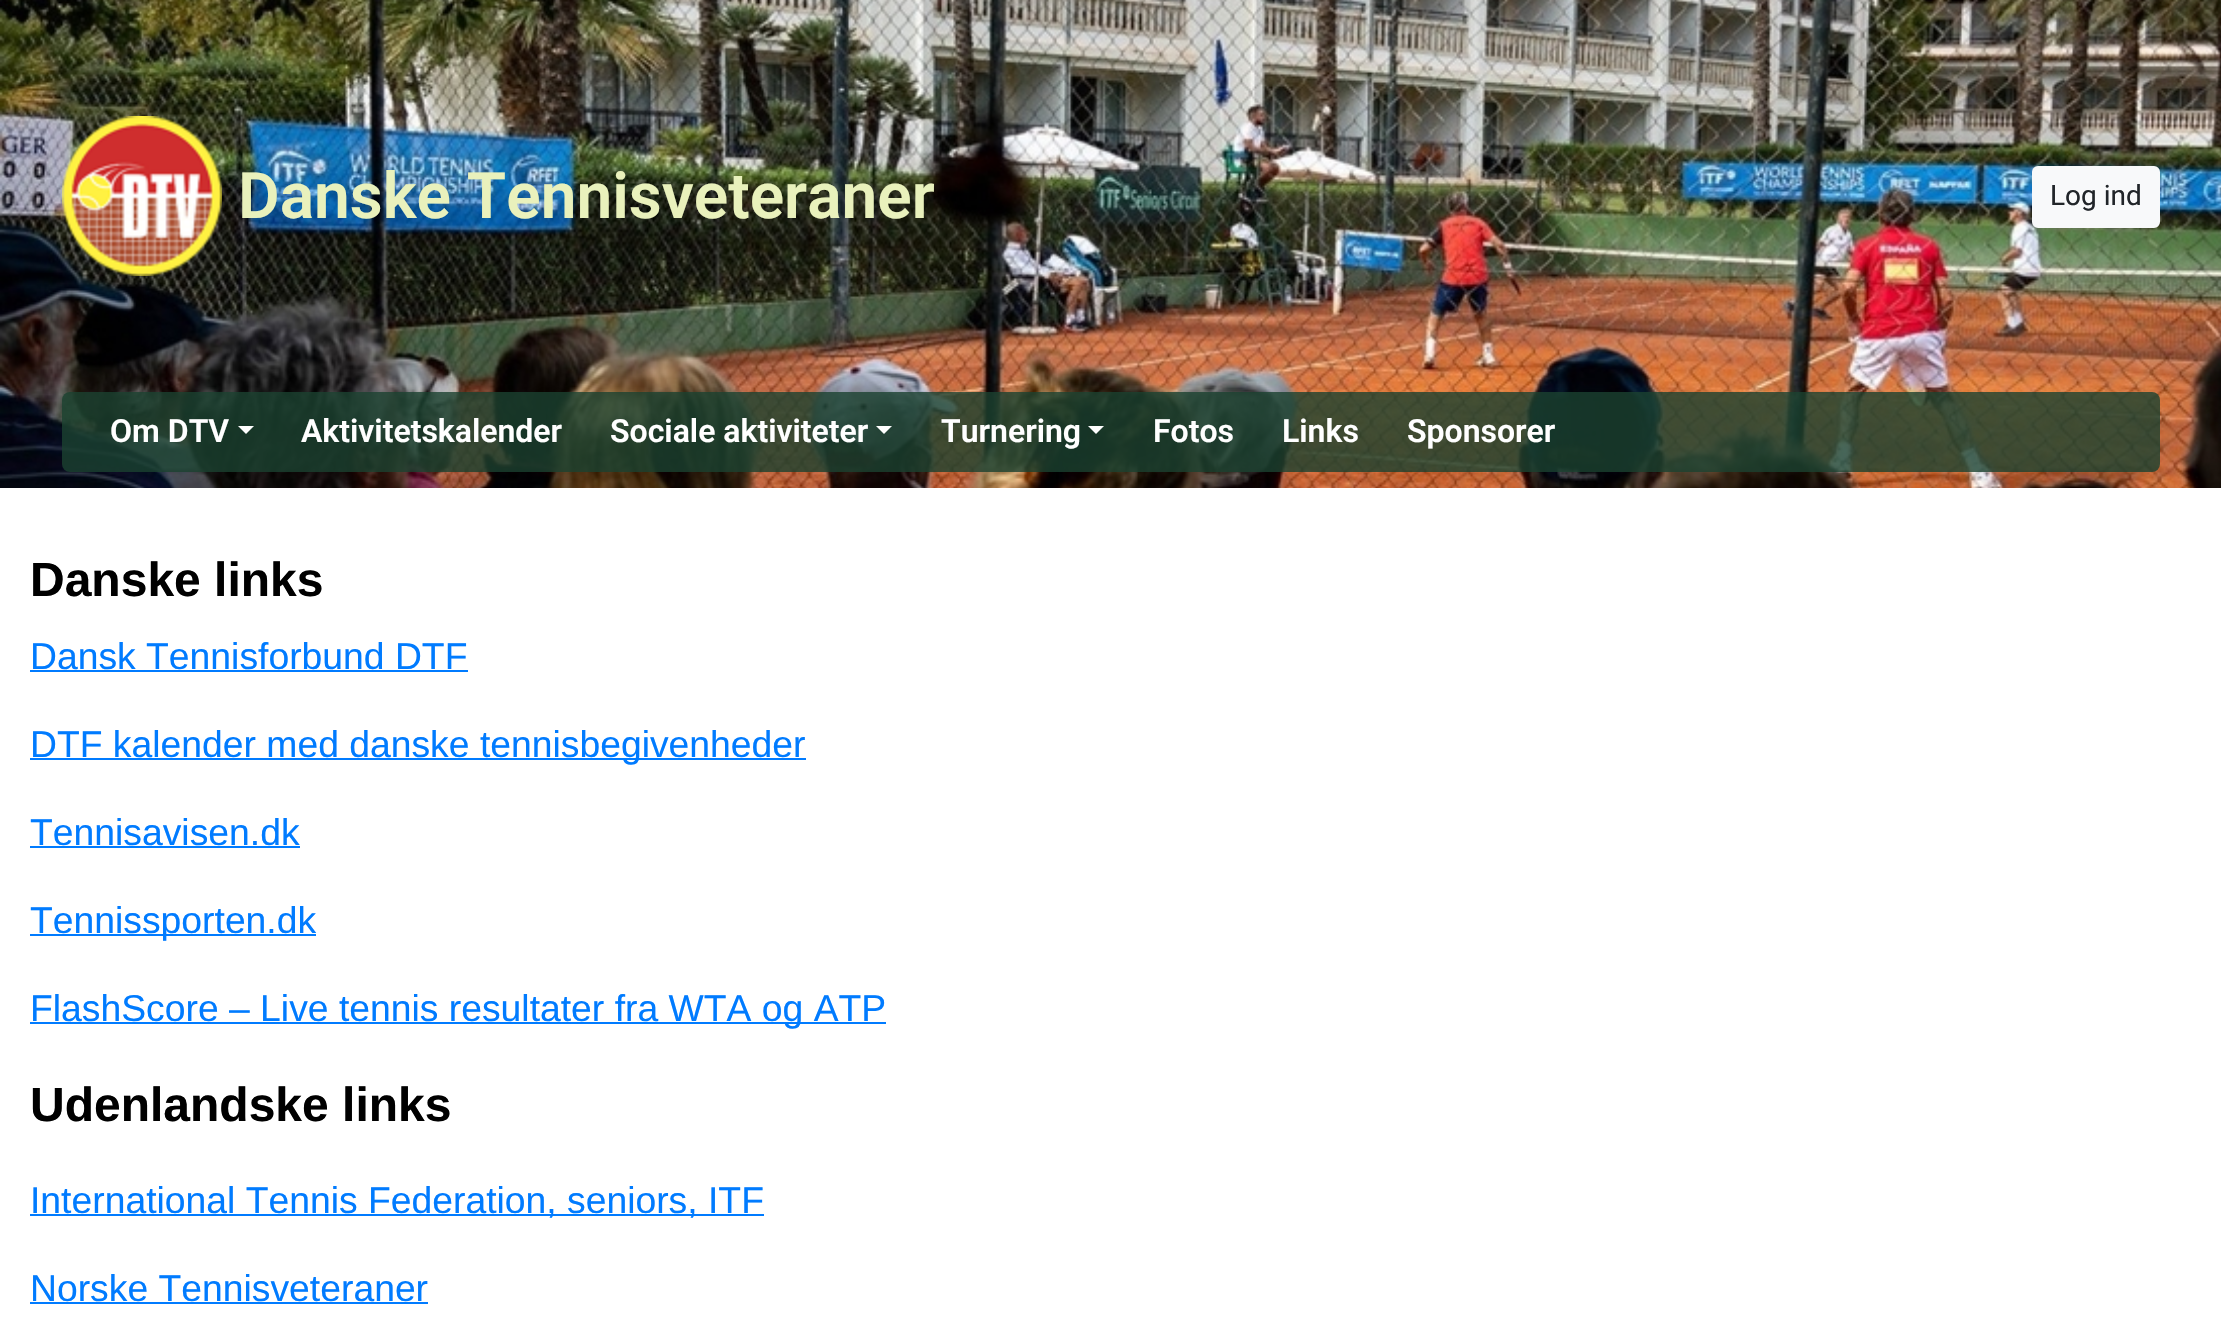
void draw(SkCanvas* canvas) {
  SkPaint paint;
  paint.setAntiAlias(true);
  auto face = [&](const char* family, int weight, float size, bool italic = false) {
    SkFontStyle style(weight, SkFontStyle::kNormal_Width,
      italic ? SkFontStyle::kItalic_Slant : SkFontStyle::kUpright_Slant);
    SkFont result(fontMgr->matchFamilyStyle(family, style), size);
    result.setSubpixel(true);
    return result;
  };
  auto paste = [&](const char* path, float x, float y, float w, float h) {
    auto image = SkImages::DeferredFromEncodedData(SkData::MakeFromFileName(path));
    canvas->drawImageRect(image, SkRect::MakeXYWH(x, y, w, h), SkSamplingOptions());
  };
  auto shape = [&](const char* data, bool evenOdd = false) {
    SkPath result = *SkParsePath::FromSVGString(data);
    if (evenOdd) result.setFillType(SkPathFillType::kEvenOdd);
    return result;
  };
  canvas->clear(0xffffffff);
  paste("img/1.png", 0, 0, 2221, 488);
  paste("img/2.png", 62, 116, 160, 160);
  paint.setColor(0xfff8f9fa);
  canvas->drawRoundRect(SkRect::MakeXYWH(2033, 167, 126, 60), 5, 5, paint);
  paint.setStroke(true);
  paint.setStrokeWidth(2);
  canvas->drawRoundRect(SkRect::MakeXYWH(2033, 167, 126, 60), 5, 5, paint);
  paint.setStroke(false);
  paint.setColor(0xcc1a412f);
  canvas->drawRoundRect(SkRect::MakeXYWH(62, 392, 2098, 80), 8, 8, paint);
  paint.setColor(0xffffffff);
  canvas->drawPath(shape("M238 426H254L246 434Z"), paint);
  canvas->drawPath(shape("M876 426H892L884 434Z"), paint);
  canvas->drawPath(shape("M1088 426H1104L1096 434Z"), paint);
  {
    const struct { float x, y, w, h; SkColor color; } items[] = {
      {30, 670, 438, 2, 0xff007bff},
      {30, 758, 776, 2, 0xff007bff},
      {30, 846, 270, 2, 0xff007bff},
      {30, 934, 286, 2, 0xff007bff},
      {30, 1022, 856, 2, 0xff007bff},
      {30, 1214, 734, 2, 0xff007bff},
      {30, 1302, 398, 2, 0xff007bff},
    };
    for (auto [x, y, w, h, color] : items) {
      paint.setColor(color);
      canvas->drawRect(SkRect::MakeXYWH(x, y, w, h), paint);
    }
  }
  auto f0 = face("Roboto", 600, 64);
  paint.setColor(0xffe9f1bc);
  canvas->drawString("Danske Tennisveteraner", 238, 218, f0, paint);
  auto f1 = face("Roboto", 400, 28);
  paint.setColor(0xff212529);
  canvas->drawString("Log ind", 2050, 205, f1, paint);
  auto f2 = face("Roboto", 600, 32);
  paint.setColor(0xffffffff);
  {
    const struct { const char* s; float x, y; } items[] = {
      {"Om DTV", 110, 442},
      {"Aktivitetskalender", 301, 442},
      {"Sociale aktiviteter", 610, 442},
      {"Turnering", 941, 442},
      {"Fotos", 1153, 442},
      {"Links", 1282, 442},
      {"Sponsorer", 1407, 442},
    };
    for (auto [s, x, y] : items) {
      canvas->drawString(s, x, y, f2, paint);
    }
  }
  auto f3 = face("Liberation Sans", 700, 48);
  paint.setColor(0xff000000);
  canvas->drawString("Danske links", 30, 596, f3, paint);
  auto f4 = face("Liberation Sans", 400, 37.3f);
  paint.setColor(0xff007bff);
  {
    const struct { const char* s; float x, y; } items[] = {
      {"Dansk Tennisforbund DTF", 30, 669},
      {"DTF kalender med danske tennisbegivenheder", 30, 757},
      {"Tennisavisen.dk", 30, 845},
      {"Tennissporten.dk", 30, 933},
      {"FlashScore – Live tennis resultater fra WTA og ATP", 30, 1021},
    };
    for (auto [s, x, y] : items) {
      canvas->drawString(s, x, y, f4, paint);
    }
  }
  paint.setColor(0xff000000);
  canvas->drawString("Udenlandske links", 30, 1121, f3, paint);
  paint.setColor(0xff007bff);
  canvas->drawString("International Tennis Federation, seniors, ITF", 30, 1213, f4, paint);
  canvas->drawString("Norske Tennisveteraner", 30, 1301, f4, paint);
}
